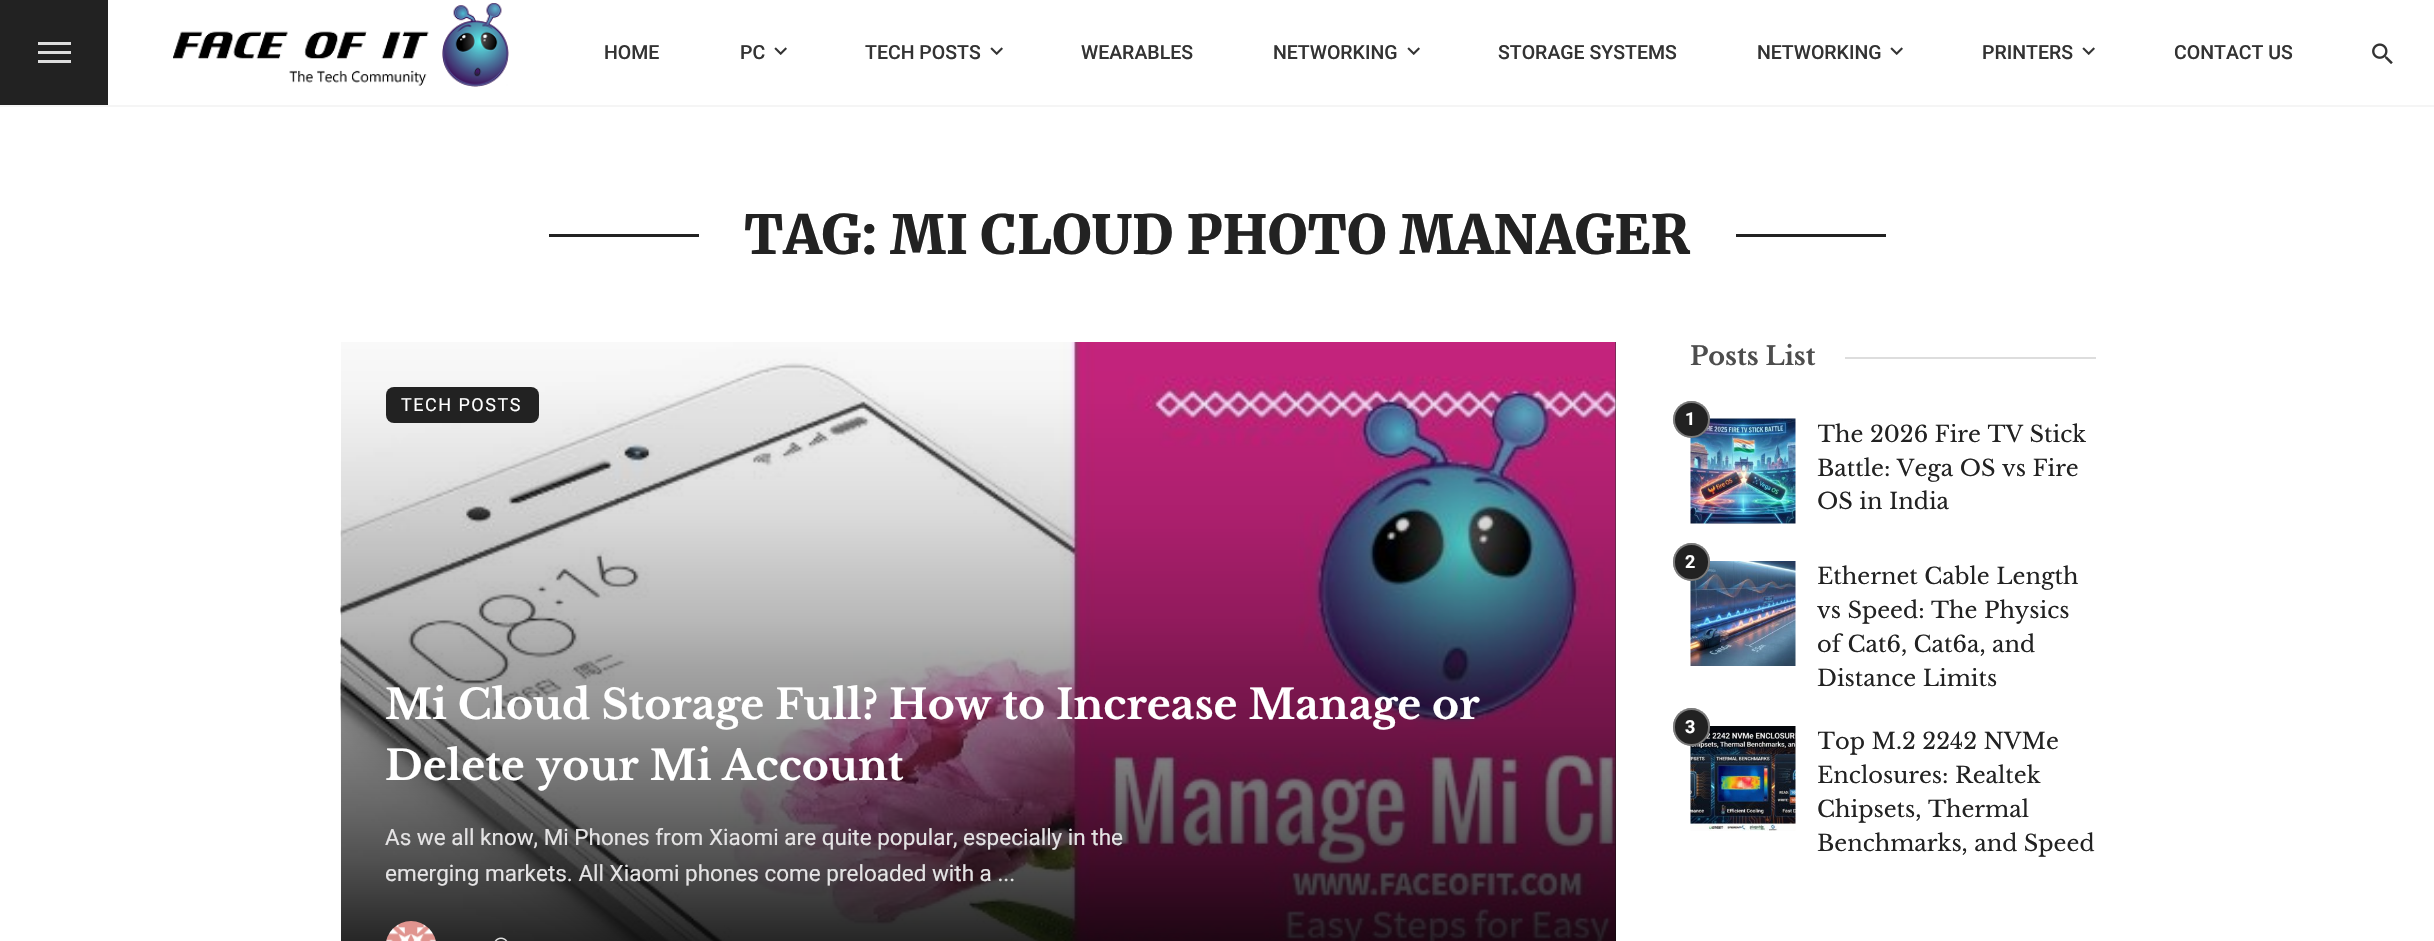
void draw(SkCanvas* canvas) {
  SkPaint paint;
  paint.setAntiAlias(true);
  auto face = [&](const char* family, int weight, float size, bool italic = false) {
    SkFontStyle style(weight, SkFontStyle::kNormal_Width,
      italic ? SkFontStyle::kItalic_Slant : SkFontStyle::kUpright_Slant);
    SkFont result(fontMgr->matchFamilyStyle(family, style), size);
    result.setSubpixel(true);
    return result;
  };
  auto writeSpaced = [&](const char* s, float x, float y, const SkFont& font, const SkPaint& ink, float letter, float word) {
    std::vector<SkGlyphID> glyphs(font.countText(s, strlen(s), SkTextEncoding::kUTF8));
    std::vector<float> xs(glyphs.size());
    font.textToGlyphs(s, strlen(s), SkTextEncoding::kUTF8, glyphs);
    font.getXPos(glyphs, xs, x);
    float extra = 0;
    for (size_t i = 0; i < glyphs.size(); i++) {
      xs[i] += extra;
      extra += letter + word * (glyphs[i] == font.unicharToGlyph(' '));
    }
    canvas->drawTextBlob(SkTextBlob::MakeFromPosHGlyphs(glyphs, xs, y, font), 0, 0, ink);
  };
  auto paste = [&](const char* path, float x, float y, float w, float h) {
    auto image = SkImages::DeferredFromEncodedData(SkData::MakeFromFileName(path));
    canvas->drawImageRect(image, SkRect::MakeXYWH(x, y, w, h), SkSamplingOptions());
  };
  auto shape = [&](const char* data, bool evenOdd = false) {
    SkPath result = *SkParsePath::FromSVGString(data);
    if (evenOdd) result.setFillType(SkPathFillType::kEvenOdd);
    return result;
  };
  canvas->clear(0xffffffff);
  paint.setColor(0xfff5f5f5);
  canvas->drawPath(shape("M0 105V107H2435V2H2434V105Z"), paint);
  {
    const struct { float x, y, w, h; SkColor color; } items[] = {
      {0, 0, 108, 105, 0xff222222},
      {38, 51, 33, 3, 0xffdedede},
      {38, 42, 33, 3, 0xffdedede},
      {38, 60, 33, 3, 0xffdedede},
    };
    for (auto [x, y, w, h, color] : items) {
      paint.setColor(color);
      canvas->drawRect(SkRect::MakeXYWH(x, y, w, h), paint);
    }
  }
  paste("img/1.png", 173, 3, 336, 84);
  paste("img/2.png", 774, 47, 13, 8);
  paste("img/2.png", 990, 47, 13, 8);
  paste("img/2.png", 1407, 47, 13, 8);
  paste("img/2.png", 1890, 47, 13, 8);
  paste("img/2.png", 2082, 47, 13, 8);
  paste("img/3.png", 2372, 43, 21, 21);
  {
    const struct { float x, y, w, h; SkColor color; } items[] = {
      {549, 234, 150, 3, 0xff222222},
      {1736, 234, 150, 3, 0xff222222},
      {1615, 342, 1, 599, 0xff333333},
    };
    for (auto [x, y, w, h, color] : items) {
      paint.setColor(color);
      canvas->drawRect(SkRect::MakeXYWH(x, y, w, h), paint);
    }
  }
  paste("img/4.png", 340, 342, 1276, 599);
  {
    const SkColor colors[] = {0xff000000, 0xeb000000, 0xd4000000, 0xbf000000, 0xab000000, 0x96000000, 0x82000000, 0x6e000000, 0x5c000000, 0x47000000, 0x36000000, 0x24000000, 0x17000000, 0x0a000000, 0x03000000, 0x00000000};
    const float stops[] = {0, 0.05f, 0.11f, 0.16f, 0.21f, 0.27f, 0.33f, 0.38f, 0.45f, 0.51f, 0.58f, 0.65f, 0.73f, 0.81f, 0.91f, 1};
    const SkPoint ends[] = {{978, 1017}, {978, 240}};
    paint.setShader(SkGradientShader::MakeLinear(ends, colors, stops, 16, SkTileMode::kClamp));
    paint.setAlpha(255);
  }
  canvas->drawRect(SkRect::MakeXYWH(341, 342, 1275, 599), paint);
  paint.setShader(nullptr);
  paint.setColor(0xff222222);
  canvas->drawRoundRect(SkRect::MakeXYWH(386, 387, 153, 36), 8, 8, paint);
  paste("img/5.png", 386, 921, 50, 20);
  paste("img/6.png", 494, 937, 14, 4);
  paint.setColor(0xffdddddd);
  canvas->drawRect(SkRect::MakeXYWH(1845, 357, 251, 2), paint);
  paste("img/7.png", 1690, 418, 106, 106);
  paint.setColor(0xff222222);
  canvas->drawCircle(1691.5f, 419.5f, 18.5f, paint);
  paint.setStroke(true);
  paint.setStrokeWidth(2);
  paint.setColor(0x66ffffff);
  canvas->drawCircle(1691.5f, 419.5f, 17.5f, paint);
  paste("img/8.png", 1690, 561, 106, 105);
  paint.setStroke(false);
  paint.setColor(0xff222222);
  canvas->drawRoundRect(SkRect::MakeXYWH(1673, 543, 37, 38), 18.5f, 18.5f, paint);
  paint.setStroke(true);
  paint.setColor(0x66ffffff);
  canvas->drawRoundRect(SkRect::MakeXYWH(1674, 544, 35, 36), 17.5f, 17.5f, paint);
  paste("img/9.png", 1690, 726, 106, 105);
  paint.setStroke(false);
  paint.setColor(0xff222222);
  canvas->drawRoundRect(SkRect::MakeXYWH(1673, 708, 37, 38), 18.5f, 18.5f, paint);
  paint.setStroke(true);
  paint.setColor(0x66ffffff);
  canvas->drawRoundRect(SkRect::MakeXYWH(1674, 709, 35, 36), 17.5f, 17.5f, paint);
  auto f0 = face("Roboto", 500, 19.5f);
  paint.setStroke(false);
  paint.setColor(0xff333333);
  {
    const struct { const char* s; float x, y; } items[] = {
      {"HOME", 604, 59},
      {"PC", 740, 59},
      {"TECH POSTS", 865, 59},
      {"WEARABLES", 1081, 59},
      {"NETWORKING", 1273, 59},
      {"STORAGE SYSTEMS", 1498, 59},
      {"NETWORKING", 1757, 59},
      {"PRINTERS", 1982, 59},
      {"CONTACT US", 2174, 59},
    };
    for (auto [s, x, y] : items) {
      canvas->drawString(s, x, y, f0, paint);
    }
  }
  auto f1 = face("Merriweather", 900, 54);
  paint.setColor(0xff222222);
  canvas->drawString("TAG: MI CLOUD PHOTO MANAGER", 744, 254, f1, paint);
  auto f2 = face("Roboto", 400, 18);
  paint.setColor(0xffffffff);
  writeSpaced("TECH POSTS", 401, 411, f2, paint, 1.5f, 0);
  auto f3 = face("Libre Baskerville", 700, 41);
  canvas->drawString("Mi Cloud Storage Full? How to Increase Manage or", 385, 719, f3, paint);
  canvas->drawString("Delete your Mi Account", 385, 780, f3, paint);
  auto f4 = face("Roboto", 400, 22.5f);
  paint.setColor(0xffe4e3e4);
  canvas->drawString("As we all know, Mi Phones from Xiaomi are quite popular, especially in the", 385, 845, f4, paint);
  canvas->drawString("emerging markets. All Xiaomi phones come preloaded with a ...", 385, 881, f4, paint);
  auto f5 = face("Libre Baskerville", 700, 25.5f);
  paint.setColor(0xff4d4d4d);
  canvas->drawString("Posts List", 1690, 365, f5, paint);
  auto f6 = face("Roboto", 700, 18);
  paint.setColor(0xffffffff);
  canvas->drawString("1", 1685, 425, f6, paint);
  canvas->save();
  canvas->clipRect(SkRect::MakeXYWH(1818, 419, 278, 100));
  auto f7 = face("Libre Baskerville", 400, 22.5f);
  paint.setColor(0xff222222);
  canvas->drawString("The 2026 Fire TV Stick", 1817, 442, f7, paint);
  canvas->restore();
  canvas->drawString("Battle: Vega OS vs Fire", 1817, 476, f7, paint);
  canvas->drawString("OS in India", 1817, 509, f7, paint);
  paint.setColor(0xffffffff);
  canvas->drawString("2", 1685, 568, f6, paint);
  paint.setColor(0xff222222);
  {
    const struct { const char* s; float x, y; } items[] = {
      {"Ethernet Cable Length", 1817, 584},
      {"vs Speed: The Physics", 1817, 618},
      {"of Cat6, Cat6a, and", 1817, 652},
      {"Distance Limits", 1817, 686},
    };
    for (auto [s, x, y] : items) {
      canvas->drawString(s, x, y, f7, paint);
    }
  }
  paint.setColor(0xffffffff);
  canvas->drawString("3", 1685, 733, f6, paint);
  canvas->save();
  canvas->clipRect(SkRect::MakeXYWH(1818, 726, 278, 135));
  paint.setColor(0xff222222);
  canvas->drawString("Top M.2 2242 NVMe", 1817, 749, f7, paint);
  canvas->restore();
  {
    const struct { const char* s; float x, y; } items[] = {
      {"Enclosures: Realtek", 1817, 783},
      {"Chipsets, Thermal", 1817, 817},
      {"Benchmarks, and Speed", 1817, 851},
    };
    for (auto [s, x, y] : items) {
      canvas->drawString(s, x, y, f7, paint);
    }
  }
}
